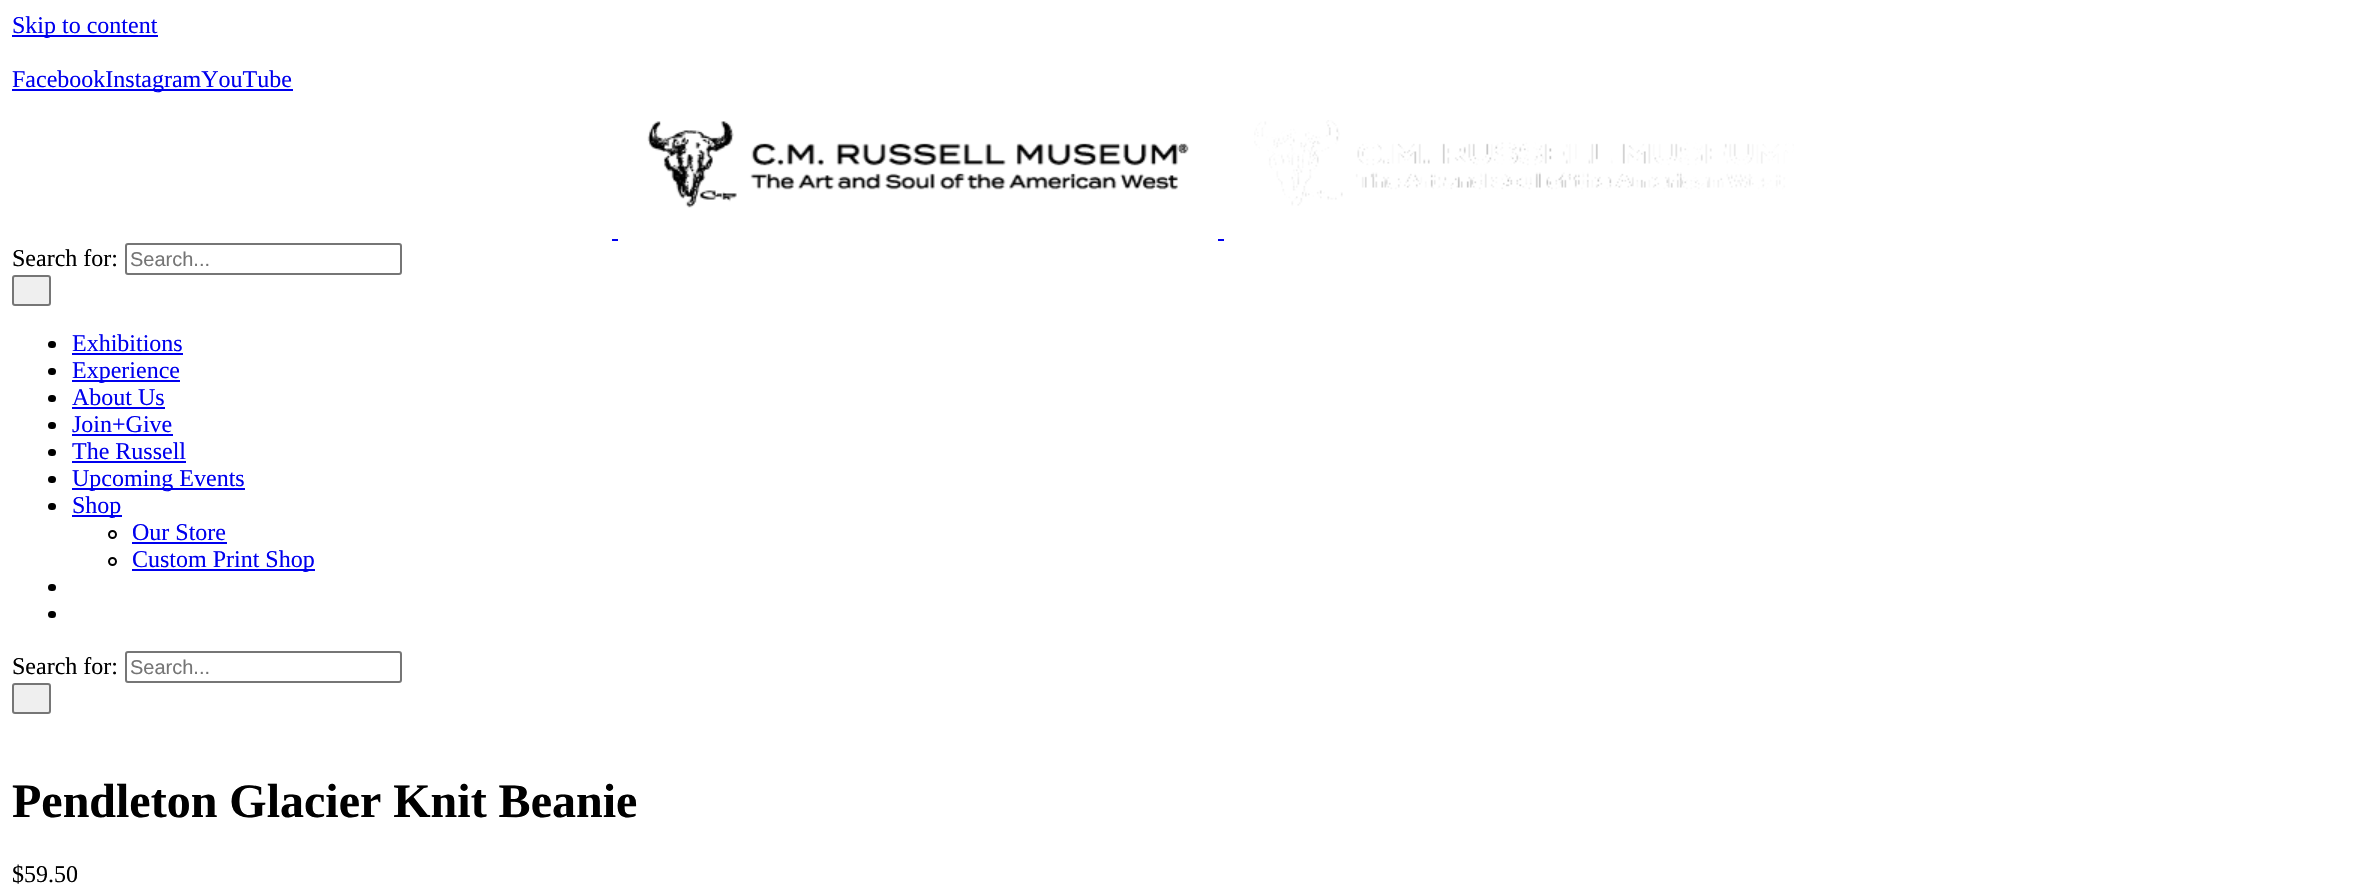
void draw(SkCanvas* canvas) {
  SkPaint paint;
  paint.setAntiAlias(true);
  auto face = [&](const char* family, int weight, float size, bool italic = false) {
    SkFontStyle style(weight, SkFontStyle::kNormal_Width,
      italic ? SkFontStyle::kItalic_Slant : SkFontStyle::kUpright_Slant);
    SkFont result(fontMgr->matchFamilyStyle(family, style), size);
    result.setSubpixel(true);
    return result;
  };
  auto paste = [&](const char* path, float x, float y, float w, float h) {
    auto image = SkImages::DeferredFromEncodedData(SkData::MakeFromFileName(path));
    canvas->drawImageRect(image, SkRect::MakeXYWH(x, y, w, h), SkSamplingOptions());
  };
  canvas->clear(0xffffffff);
  paint.setColor(0xff0000ee);
  canvas->drawRect(SkRect::MakeXYWH(12, 35, 146, 2), paint);
  canvas->drawRect(SkRect::MakeXYWH(12, 89, 281, 2), paint);
  paste("img/1.png", 647, 121, 542, 87);
  paste("img/2.png", 1254, 120, 540, 86);
  canvas->drawRect(SkRect::MakeXYWH(612, 239, 6, 2), paint);
  canvas->drawRect(SkRect::MakeXYWH(1218, 239, 6, 2), paint);
  paint.setStroke(true);
  paint.setStrokeWidth(2);
  paint.setColor(0xff767676);
  canvas->drawRoundRect(SkRect::MakeXYWH(126, 244, 275, 30), 2, 2, paint);
  paint.setStroke(false);
  paint.setColor(0xffefefef);
  canvas->drawRoundRect(SkRect::MakeXYWH(13, 276, 37, 29), 2, 2, paint);
  paint.setStroke(true);
  paint.setColor(0xff767676);
  canvas->drawRoundRect(SkRect::MakeXYWH(13, 276, 37, 29), 2, 2, paint);
  paint.setStroke(false);
  paint.setColor(0xff000000);
  canvas->drawRoundRect(SkRect::MakeXYWH(48, 341, 8, 7), 3.5f, 3.5f, paint);
  paint.setColor(0xff0000ee);
  canvas->drawRect(SkRect::MakeXYWH(72, 353, 111, 2), paint);
  paint.setColor(0xff000000);
  canvas->drawRoundRect(SkRect::MakeXYWH(48, 368, 8, 7), 3.5f, 3.5f, paint);
  paint.setColor(0xff0000ee);
  canvas->drawRect(SkRect::MakeXYWH(72, 380, 108, 2), paint);
  paint.setColor(0xff000000);
  canvas->drawRoundRect(SkRect::MakeXYWH(48, 395, 8, 7), 3.5f, 3.5f, paint);
  paint.setColor(0xff0000ee);
  canvas->drawRect(SkRect::MakeXYWH(72, 407, 93, 2), paint);
  paint.setColor(0xff000000);
  canvas->drawRoundRect(SkRect::MakeXYWH(48, 422, 8, 7), 3.5f, 3.5f, paint);
  paint.setColor(0xff0000ee);
  canvas->drawRect(SkRect::MakeXYWH(72, 434, 101, 2), paint);
  paint.setColor(0xff000000);
  canvas->drawRoundRect(SkRect::MakeXYWH(48, 449, 8, 7), 3.5f, 3.5f, paint);
  paint.setColor(0xff0000ee);
  canvas->drawRect(SkRect::MakeXYWH(72, 461, 114, 2), paint);
  paint.setColor(0xff000000);
  canvas->drawRoundRect(SkRect::MakeXYWH(48, 476, 8, 7), 3.5f, 3.5f, paint);
  paint.setColor(0xff0000ee);
  canvas->drawRect(SkRect::MakeXYWH(72, 488, 173, 2), paint);
  paint.setColor(0xff000000);
  canvas->drawRoundRect(SkRect::MakeXYWH(48, 503, 8, 7), 3.5f, 3.5f, paint);
  paint.setColor(0xff0000ee);
  canvas->drawRect(SkRect::MakeXYWH(72, 515, 50, 2), paint);
  paint.setStroke(true);
  paint.setColor(0xff000000);
  canvas->drawCircle(112.5f, 534.5f, 3.5f, paint);
  paint.setStroke(false);
  paint.setColor(0xff0000ee);
  canvas->drawRect(SkRect::MakeXYWH(132, 542, 95, 2), paint);
  paint.setStroke(true);
  paint.setColor(0xff000000);
  canvas->drawCircle(112.5f, 561.5f, 3.5f, paint);
  paint.setStroke(false);
  paint.setColor(0xff0000ee);
  canvas->drawRect(SkRect::MakeXYWH(132, 569, 183, 2), paint);
  paint.setColor(0xff000000);
  canvas->drawRoundRect(SkRect::MakeXYWH(48, 584, 8, 7), 3.5f, 3.5f, paint);
  canvas->drawRoundRect(SkRect::MakeXYWH(48, 611, 8, 7), 3.5f, 3.5f, paint);
  paint.setStroke(true);
  paint.setColor(0xff767676);
  canvas->drawRoundRect(SkRect::MakeXYWH(126, 652, 275, 30), 2, 2, paint);
  paint.setStroke(false);
  paint.setColor(0xffefefef);
  canvas->drawRoundRect(SkRect::MakeXYWH(13, 684, 37, 29), 2, 2, paint);
  paint.setStroke(true);
  paint.setColor(0xff767676);
  canvas->drawRoundRect(SkRect::MakeXYWH(13, 684, 37, 29), 2, 2, paint);
  auto f0 = face("Liberation Serif", 400, 24);
  paint.setStroke(false);
  paint.setColor(0xff0000ee);
  canvas->drawString("Skip to content", 12, 33, f0, paint);
  canvas->drawString("FacebookInstagramYouTube", 12, 87, f0, paint);
  paint.setColor(0xff000000);
  canvas->drawString("Search for:", 12, 266, f0, paint);
  auto f1 = face("Liberation Sans", 400, 20);
  paint.setColor(0xff757575);
  canvas->drawString("Search...", 130, 266, f1, paint);
  paint.setColor(0xff0000ee);
  {
    const struct { const char* s; float x, y; } items[] = {
      {"Exhibitions", 72, 351},
      {"Experience", 72, 378},
      {"About Us", 72, 405},
      {"Join+Give", 72, 432},
      {"The Russell", 72, 459},
      {"Upcoming Events", 72, 486},
      {"Shop", 72, 513},
      {"Our Store", 132, 540},
      {"Custom Print Shop", 132, 567},
    };
    for (auto [s, x, y] : items) {
      canvas->drawString(s, x, y, f0, paint);
    }
  }
  paint.setColor(0xff000000);
  canvas->drawString("Search for:", 12, 674, f0, paint);
  paint.setColor(0xff757575);
  canvas->drawString("Search...", 130, 674, f1, paint);
  auto f2 = face("Liberation Serif", 700, 48);
  paint.setColor(0xff000000);
  canvas->drawString("Pendleton Glacier Knit Beanie", 12, 817, f2, paint);
  canvas->drawString("$59.50", 12, 882, f0, paint);
}
